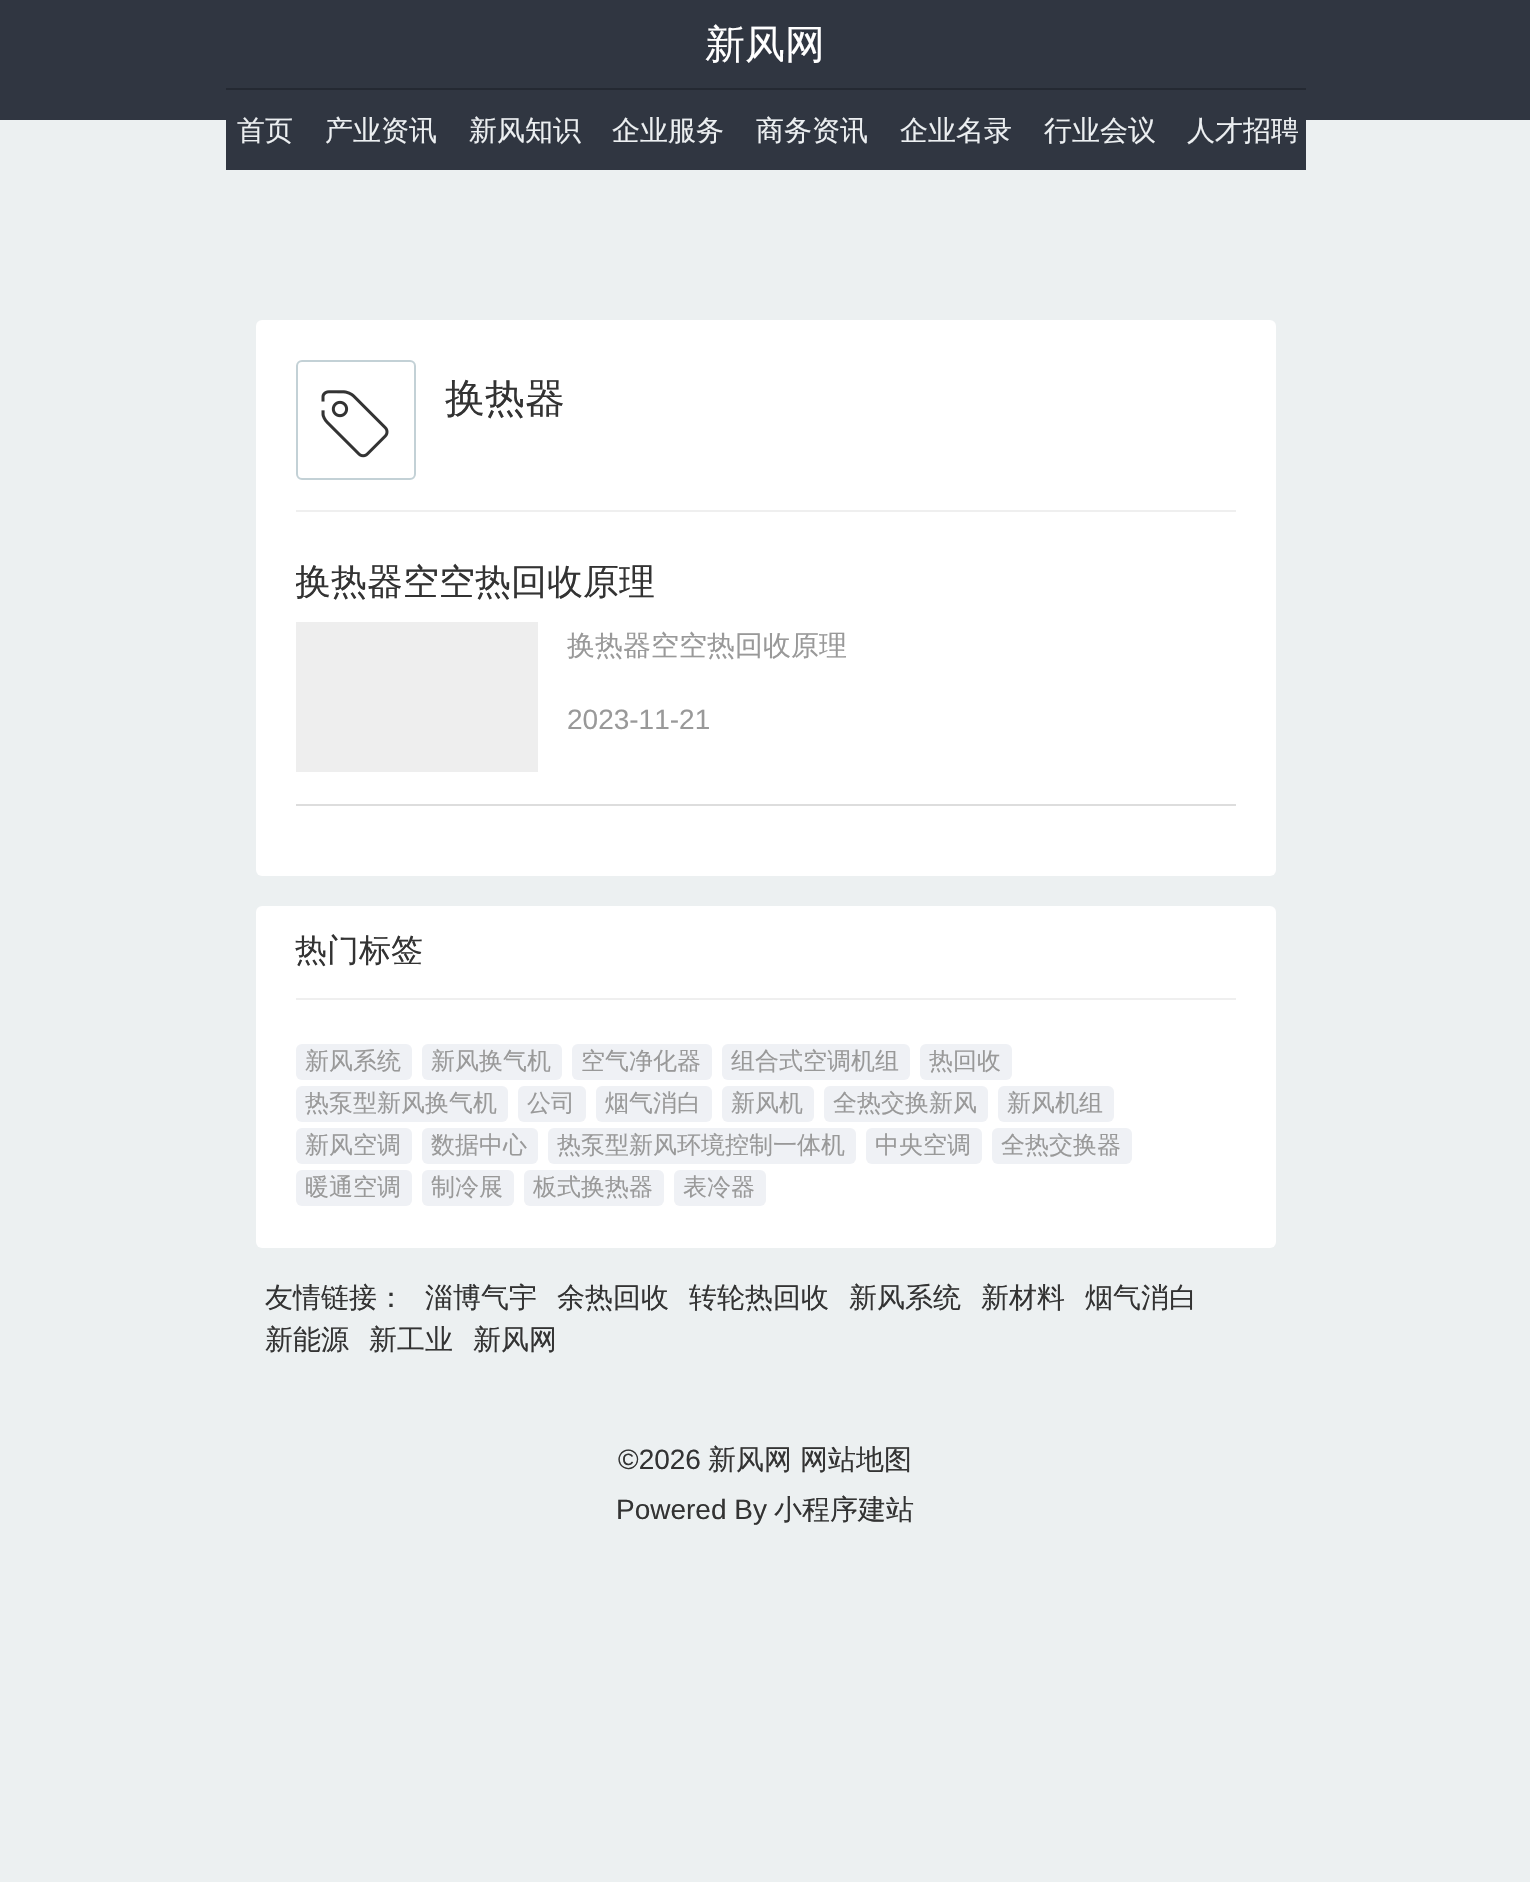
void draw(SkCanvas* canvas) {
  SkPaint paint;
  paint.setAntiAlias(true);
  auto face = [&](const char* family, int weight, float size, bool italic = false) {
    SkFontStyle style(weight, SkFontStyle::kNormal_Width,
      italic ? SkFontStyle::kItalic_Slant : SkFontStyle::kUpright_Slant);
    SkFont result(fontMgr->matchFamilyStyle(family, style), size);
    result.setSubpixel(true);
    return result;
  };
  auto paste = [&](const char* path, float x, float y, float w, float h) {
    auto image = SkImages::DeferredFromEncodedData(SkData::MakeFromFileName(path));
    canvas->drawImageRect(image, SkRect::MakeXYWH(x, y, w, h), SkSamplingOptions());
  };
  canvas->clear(0xffecf0f1);
  {
    const struct { float x, y, w, h; SkColor color; } items[] = {
      {0, 0, 1530, 120, 0xff303641},
      {226, 88, 1080, 2, 0xff242932},
      {226, 120, 1080, 50, 0xff303641},
    };
    for (auto [x, y, w, h, color] : items) {
      paint.setColor(color);
      canvas->drawRect(SkRect::MakeXYWH(x, y, w, h), paint);
    }
  }
  paint.setColor(0xffffffff);
  canvas->drawRoundRect(SkRect::MakeXYWH(256, 320, 1020, 556), 6, 6, paint);
  paint.setColor(0xffefefef);
  canvas->drawRect(SkRect::MakeXYWH(296, 510, 940, 2), paint);
  paint.setStroke(true);
  paint.setStrokeWidth(2);
  paint.setColor(0xffc3d1d6);
  canvas->drawRoundRect(SkRect::MakeXYWH(297, 361, 118, 118), 5, 5, paint);
  paste("img/1.png", 321, 390, 68, 68);
  paint.setStroke(false);
  paint.setColor(0xffdddddd);
  canvas->drawRect(SkRect::MakeXYWH(296, 804, 940, 2), paint);
  paint.setColor(0xffeeeeee);
  canvas->drawRect(SkRect::MakeXYWH(296, 622, 242, 150), paint);
  paint.setColor(0xffffffff);
  canvas->drawRoundRect(SkRect::MakeXYWH(256, 906, 1020, 342), 6, 6, paint);
  paint.setColor(0xffefefef);
  canvas->drawRect(SkRect::MakeXYWH(296, 998, 940, 2), paint);
  paint.setColor(0xffeff1f5);
  canvas->drawRoundRect(SkRect::MakeXYWH(296, 1044, 116, 36), 6, 6, paint);
  canvas->drawRoundRect(SkRect::MakeXYWH(422, 1044, 140, 36), 6, 6, paint);
  canvas->drawRoundRect(SkRect::MakeXYWH(572, 1044, 140, 36), 6, 6, paint);
  canvas->drawRoundRect(SkRect::MakeXYWH(722, 1044, 188, 36), 6, 6, paint);
  canvas->drawRoundRect(SkRect::MakeXYWH(920, 1044, 92, 36), 6, 6, paint);
  canvas->drawRoundRect(SkRect::MakeXYWH(296, 1086, 212, 36), 6, 6, paint);
  canvas->drawRoundRect(SkRect::MakeXYWH(518, 1086, 68, 36), 6, 6, paint);
  canvas->drawRoundRect(SkRect::MakeXYWH(596, 1086, 116, 36), 6, 6, paint);
  canvas->drawRoundRect(SkRect::MakeXYWH(722, 1086, 92, 36), 6, 6, paint);
  canvas->drawRoundRect(SkRect::MakeXYWH(824, 1086, 164, 36), 6, 6, paint);
  canvas->drawRoundRect(SkRect::MakeXYWH(998, 1086, 116, 36), 6, 6, paint);
  canvas->drawRoundRect(SkRect::MakeXYWH(296, 1128, 116, 36), 6, 6, paint);
  canvas->drawRoundRect(SkRect::MakeXYWH(422, 1128, 116, 36), 6, 6, paint);
  canvas->drawRoundRect(SkRect::MakeXYWH(548, 1128, 308, 36), 6, 6, paint);
  canvas->drawRoundRect(SkRect::MakeXYWH(866, 1128, 116, 36), 6, 6, paint);
  canvas->drawRoundRect(SkRect::MakeXYWH(992, 1128, 140, 36), 6, 6, paint);
  canvas->drawRoundRect(SkRect::MakeXYWH(296, 1170, 116, 36), 6, 6, paint);
  canvas->drawRoundRect(SkRect::MakeXYWH(422, 1170, 92, 36), 6, 6, paint);
  canvas->drawRoundRect(SkRect::MakeXYWH(524, 1170, 140, 36), 6, 6, paint);
  canvas->drawRoundRect(SkRect::MakeXYWH(674, 1170, 92, 36), 6, 6, paint);
  auto f0 = face("WenQuanYi Zen Hei", 500, 40);
  paint.setColor(0xffffffff);
  canvas->drawString("新风网", 705, 58, f0, paint);
  auto f1 = face("WenQuanYi Zen Hei", 500, 28);
  paint.setColor(0xffeceff1);
  {
    const struct { const char* s; float x, y; } items[] = {
      {"首页", 237, 140},
      {"产业资讯", 325, 140},
      {"新风知识", 469, 140},
      {"企业服务", 612, 140},
      {"商务资讯", 756, 140},
      {"企业名录", 900, 140},
      {"行业会议", 1044, 140},
      {"人才招聘", 1187, 140},
    };
    for (auto [s, x, y] : items) {
      canvas->drawString(s, x, y, f1, paint);
    }
  }
  paint.setColor(0xff333333);
  canvas->drawString("换热器", 445, 412, f0, paint);
  canvas->save();
  canvas->clipRect(SkRect::MakeXYWH(296, 562, 940, 44));
  auto f2 = face("WenQuanYi Zen Hei", 500, 36);
  canvas->drawString("换热器空空热回收原理", 295, 594, f2, paint);
  canvas->restore();
  paint.setColor(0xff999999);
  canvas->drawString("换热器空空热回收原理", 567, 655, f1, paint);
  auto f3 = face("Liberation Sans", 400, 28);
  canvas->drawString("2023-11-21", 567, 729, f3, paint);
  auto f4 = face("WenQuanYi Zen Hei", 500, 32);
  paint.setColor(0xff333333);
  canvas->drawString("热门标签", 295, 961, f4, paint);
  auto f5 = face("WenQuanYi Zen Hei", 500, 24);
  paint.setColor(0xff999999);
  {
    const struct { const char* s; float x, y; } items[] = {
      {"新风系统", 305, 1069},
      {"新风换气机", 431, 1069},
      {"空气净化器", 581, 1069},
      {"组合式空调机组", 731, 1069},
      {"热回收", 929, 1069},
      {"热泵型新风换气机", 305, 1111},
      {"公司", 527, 1111},
      {"烟气消白", 605, 1111},
      {"新风机", 731, 1111},
      {"全热交换新风", 833, 1111},
      {"新风机组", 1007, 1111},
      {"新风空调", 305, 1153},
      {"数据中心", 431, 1153},
      {"热泵型新风环境控制一体机", 557, 1153},
      {"中央空调", 875, 1153},
      {"全热交换器", 1001, 1153},
      {"暖通空调", 305, 1195},
      {"制冷展", 431, 1195},
      {"板式换热器", 533, 1195},
      {"表冷器", 683, 1195},
    };
    for (auto [s, x, y] : items) {
      canvas->drawString(s, x, y, f5, paint);
    }
  }
  paint.setColor(0xff333333);
  {
    const struct { const char* s; float x, y; } items[] = {
      {"友情链接：", 265, 1307},
      {"淄博气宇", 425, 1307},
      {"余热回收", 557, 1307},
      {"转轮热回收", 689, 1307},
      {"新风系统", 849, 1307},
      {"新材料", 981, 1307},
      {"烟气消白", 1085, 1307},
      {"新能源", 265, 1349},
      {"新工业", 369, 1349},
      {"新风网", 473, 1349},
    };
    for (auto [s, x, y] : items) {
      canvas->drawString(s, x, y, f1, paint);
    }
  }
  canvas->drawString("©2026", 618, 1469, f3, paint);
  canvas->drawString("新风网", 708, 1469, f1, paint);
  canvas->drawString("网站地图", 800, 1469, f1, paint);
  canvas->drawString("Powered By", 616, 1519, f3, paint);
  canvas->drawString("小程序建站", 774, 1519, f1, paint);
}
